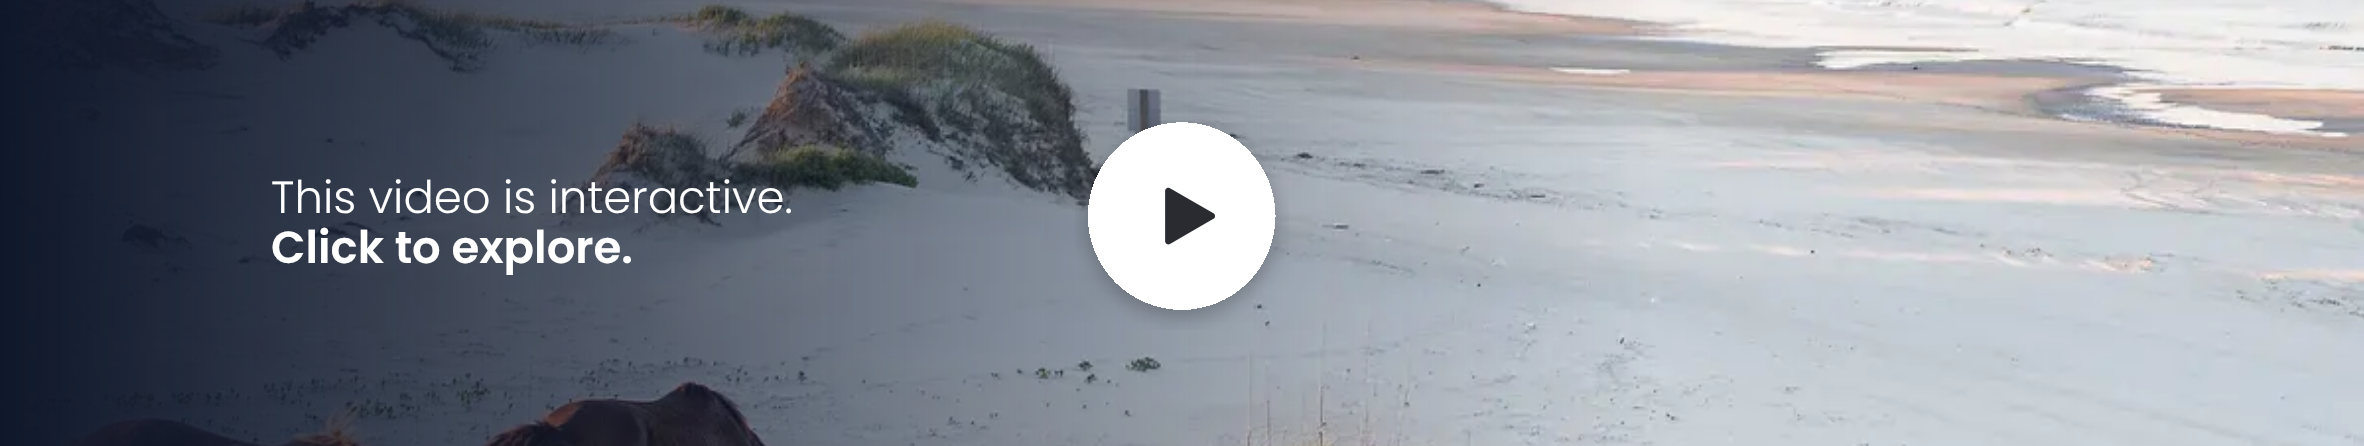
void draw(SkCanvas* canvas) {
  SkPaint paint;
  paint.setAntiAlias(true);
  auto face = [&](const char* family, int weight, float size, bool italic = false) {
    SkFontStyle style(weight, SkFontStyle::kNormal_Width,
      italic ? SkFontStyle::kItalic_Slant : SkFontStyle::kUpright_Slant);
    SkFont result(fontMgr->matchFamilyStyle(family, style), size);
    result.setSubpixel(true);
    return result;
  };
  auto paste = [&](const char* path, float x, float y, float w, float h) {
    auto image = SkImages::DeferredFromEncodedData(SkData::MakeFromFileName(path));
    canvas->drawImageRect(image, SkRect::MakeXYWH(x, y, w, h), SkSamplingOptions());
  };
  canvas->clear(0xffffffff);
  paste("img/1.png", 0, 0, 2364, 446);
  paste("img/2.png", 1075, 116, 214, 214);
  auto f0 = face("Poppins", 300, 45);
  paint.setColor(0xffffffff);
  canvas->drawString("This video is interactive.", 271, 213, f0, paint);
  auto f1 = face("Poppins", 600, 45);
  canvas->drawString("Click to explore.", 271, 263, f1, paint);
}
